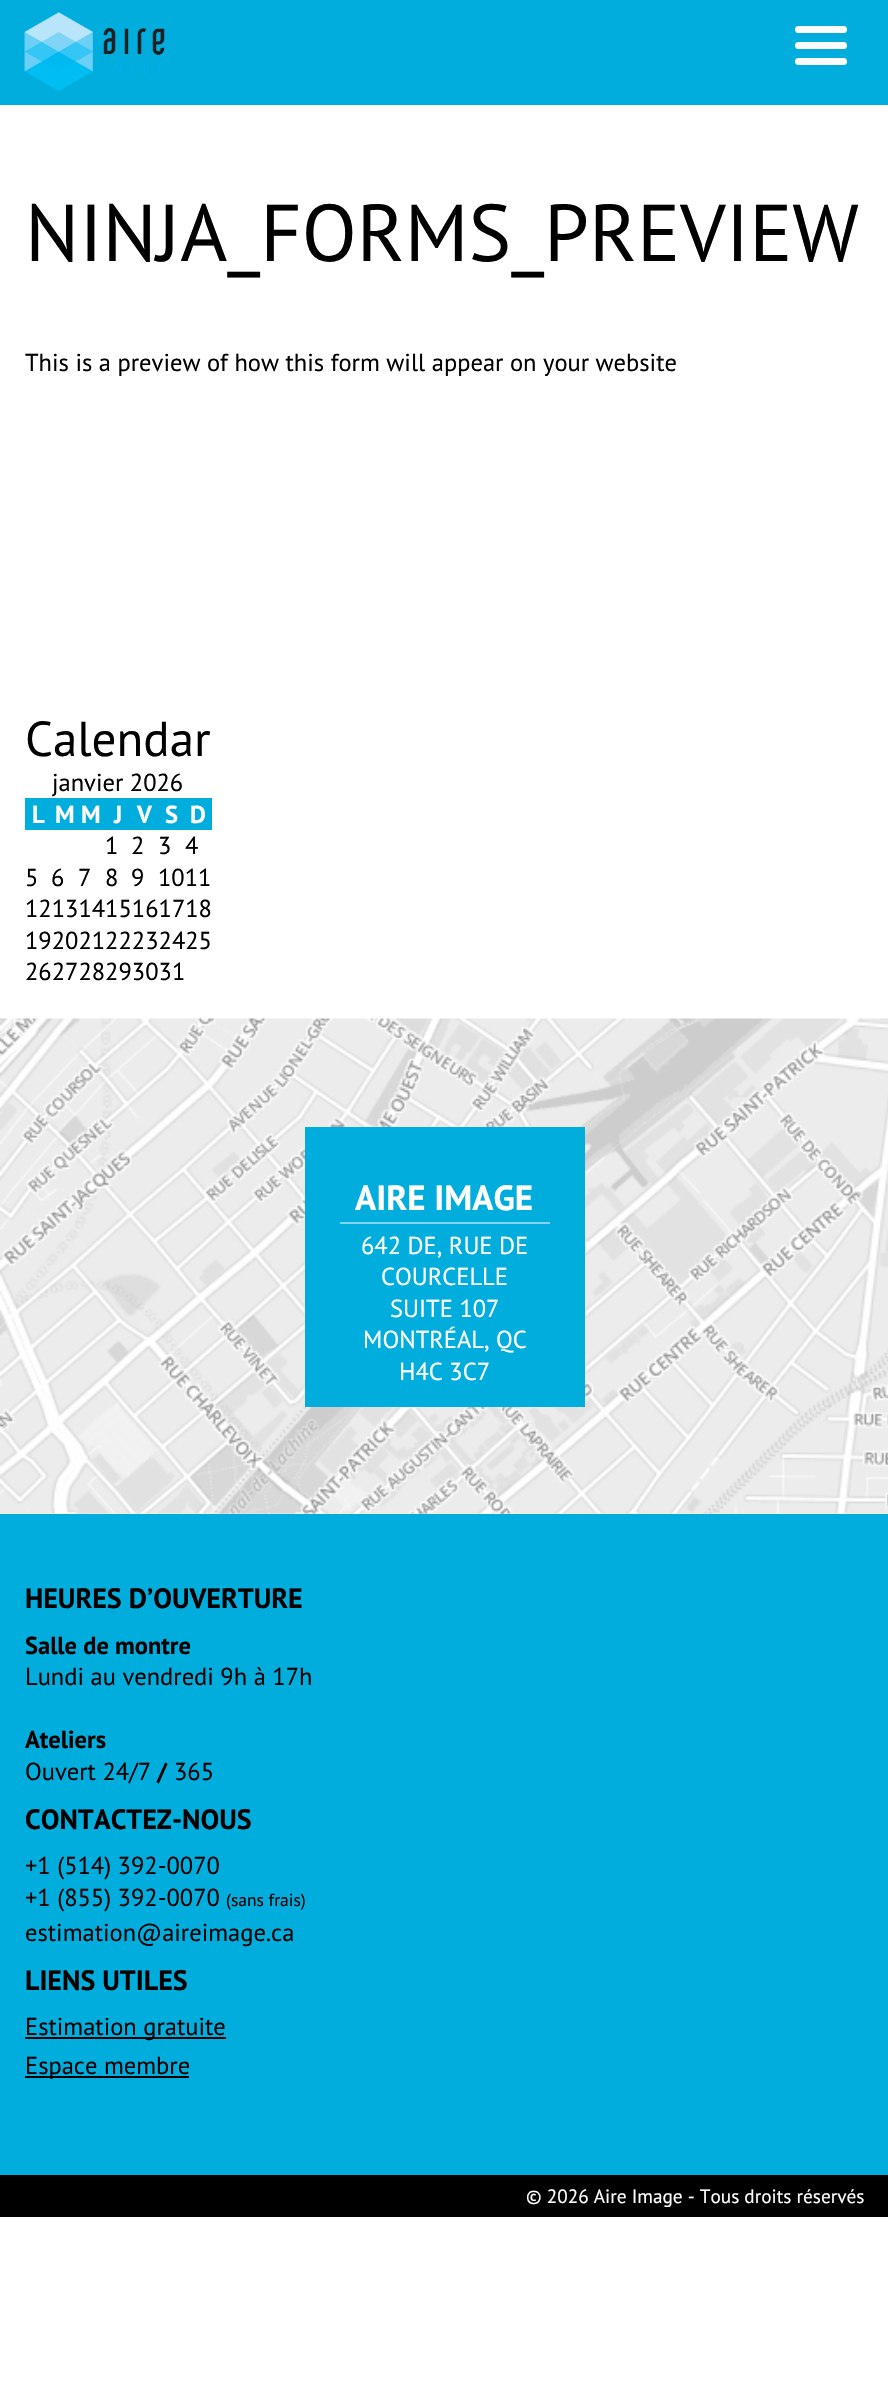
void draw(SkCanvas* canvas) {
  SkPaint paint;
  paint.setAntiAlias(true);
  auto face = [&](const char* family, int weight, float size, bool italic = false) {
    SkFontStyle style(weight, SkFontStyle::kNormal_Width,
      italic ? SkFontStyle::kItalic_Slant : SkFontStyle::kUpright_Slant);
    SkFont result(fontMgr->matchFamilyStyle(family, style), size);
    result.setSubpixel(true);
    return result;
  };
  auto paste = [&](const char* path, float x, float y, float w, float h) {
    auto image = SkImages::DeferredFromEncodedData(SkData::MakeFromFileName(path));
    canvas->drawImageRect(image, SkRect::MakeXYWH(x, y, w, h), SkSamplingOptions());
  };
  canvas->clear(0xffffffff);
  paint.setColor(0xff00addd);
  canvas->drawRect(SkRect::MakeXYWH(0, 0, 888, 105), paint);
  paste("img/1.png", 24, 12, 141, 79);
  paint.setColor(0xffffffff);
  canvas->drawRoundRect(SkRect::MakeXYWH(795, 26, 52, 7), 3.5f, 3.5f, paint);
  canvas->drawRoundRect(SkRect::MakeXYWH(795, 42, 52, 7), 3.5f, 3.5f, paint);
  canvas->drawRoundRect(SkRect::MakeXYWH(795, 58, 52, 7), 3.5f, 3.5f, paint);
  paint.setColor(0xff00addd);
  canvas->drawRect(SkRect::MakeXYWH(25, 798, 187, 32), paint);
  paste("img/2.png", 0, 1018, 888, 496);
  {
    const struct { float x, y, w, h; SkColor color; } items[] = {
      {305, 1127, 280, 280, 0xff00addd},
      {340, 1222, 210, 2, 0xff80d6ee},
      {0, 1514, 888, 661, 0xff00addd},
      {25, 2037, 201, 2, 0xff000000},
      {25, 2076, 164, 2, 0xff000000},
      {0, 2175, 888, 42, 0xff000000},
    };
    for (auto [x, y, w, h, color] : items) {
      paint.setColor(color);
      canvas->drawRect(SkRect::MakeXYWH(x, y, w, h), paint);
    }
  }
  auto f0 = face("PT Sans", 400, 80.5f);
  canvas->drawString("NINJA_FORMS_PREVIEW", 25, 261, f0, paint);
  auto f1 = face("PT Sans", 400, 24.5f);
  canvas->drawString("This is a preview of how this form will appear on your website", 25, 371, f1, paint);
  auto f2 = face("PT Sans", 400, 49);
  canvas->drawString("Calendar", 25, 756, f2, paint);
  canvas->drawString("janvier 2026", 52, 791, f1, paint);
  auto f3 = face("PT Sans", 700, 24.5f);
  paint.setColor(0xffffffff);
  {
    const struct { const char* s; float x, y; } items[] = {
      {"L", 32, 823},
      {"M", 55, 823},
      {"M", 81, 823},
      {"J", 114, 823},
      {"V", 137, 823},
      {"S", 165, 823},
      {"D", 190, 823},
    };
    for (auto [s, x, y] : items) {
      canvas->drawString(s, x, y, f3, paint);
    }
  }
  paint.setColor(0xff000000);
  {
    const struct { const char* s; float x, y; } items[] = {
      {"1", 105, 854},
      {"2", 131, 854},
      {"3", 158, 854},
      {"4", 185, 854},
      {"5", 25, 886},
      {"6", 51, 886},
      {"7", 78, 886},
      {"8", 105, 886},
      {"9", 131, 886},
      {"1011", 158, 886},
      {"12131415161718", 25, 917},
      {"19202122232425", 25, 949},
      {"262728293031", 25, 980},
    };
    for (auto [s, x, y] : items) {
      canvas->drawString(s, x, y, f1, paint);
    }
  }
  auto f4 = face("PT Sans", 700, 35);
  paint.setColor(0xffffffff);
  canvas->drawString("AIRE IMAGE", 355, 1210, f4, paint);
  {
    const struct { const char* s; float x, y; } items[] = {
      {"642 DE, RUE DE", 361, 1254},
      {"COURCELLE", 381, 1285},
      {"SUITE 107", 390, 1317},
      {"MONTRÉAL, QC", 363, 1348},
      {"H4C 3C7", 399, 1380},
    };
    for (auto [s, x, y] : items) {
      canvas->drawString(s, x, y, f1, paint);
    }
  }
  auto f5 = face("PT Sans", 700, 28);
  paint.setColor(0xff000000);
  canvas->drawString("HEURES D’OUVERTURE", 25, 1608, f5, paint);
  canvas->drawString("Salle de montre", 25, 1654, f3, paint);
  canvas->drawString("Lundi au vendredi 9h à 17h", 25, 1685, f1, paint);
  canvas->drawString("Ateliers", 25, 1748, f3, paint);
  canvas->drawString("Ouvert 24/7", 25, 1780, f1, paint);
  canvas->drawString("/", 157, 1780, f3, paint);
  canvas->drawString("365", 174, 1780, f1, paint);
  canvas->drawString("CONTACTEZ-NOUS", 25, 1829, f5, paint);
  canvas->drawString("+1 (514) 392-0070", 25, 1874, f1, paint);
  canvas->drawString("+1 (855) 392-0070", 25, 1906, f1, paint);
  auto f6 = face("PT Sans", 400, 17.5f);
  canvas->drawString("(sans frais)", 226, 1906, f6, paint);
  canvas->drawString("estimation@aireimage.ca", 25, 1941, f1, paint);
  canvas->drawString("LIENS UTILES", 25, 1990, f5, paint);
  canvas->drawString("Estimation gratuite", 25, 2035, f1, paint);
  canvas->drawString("Espace membre", 25, 2074, f1, paint);
  auto f7 = face("PT Sans", 400, 19.25f);
  paint.setColor(0xffffffff);
  canvas->drawString("© 2026 Aire Image - Tous droits réservés", 526, 2203, f7, paint);
}
